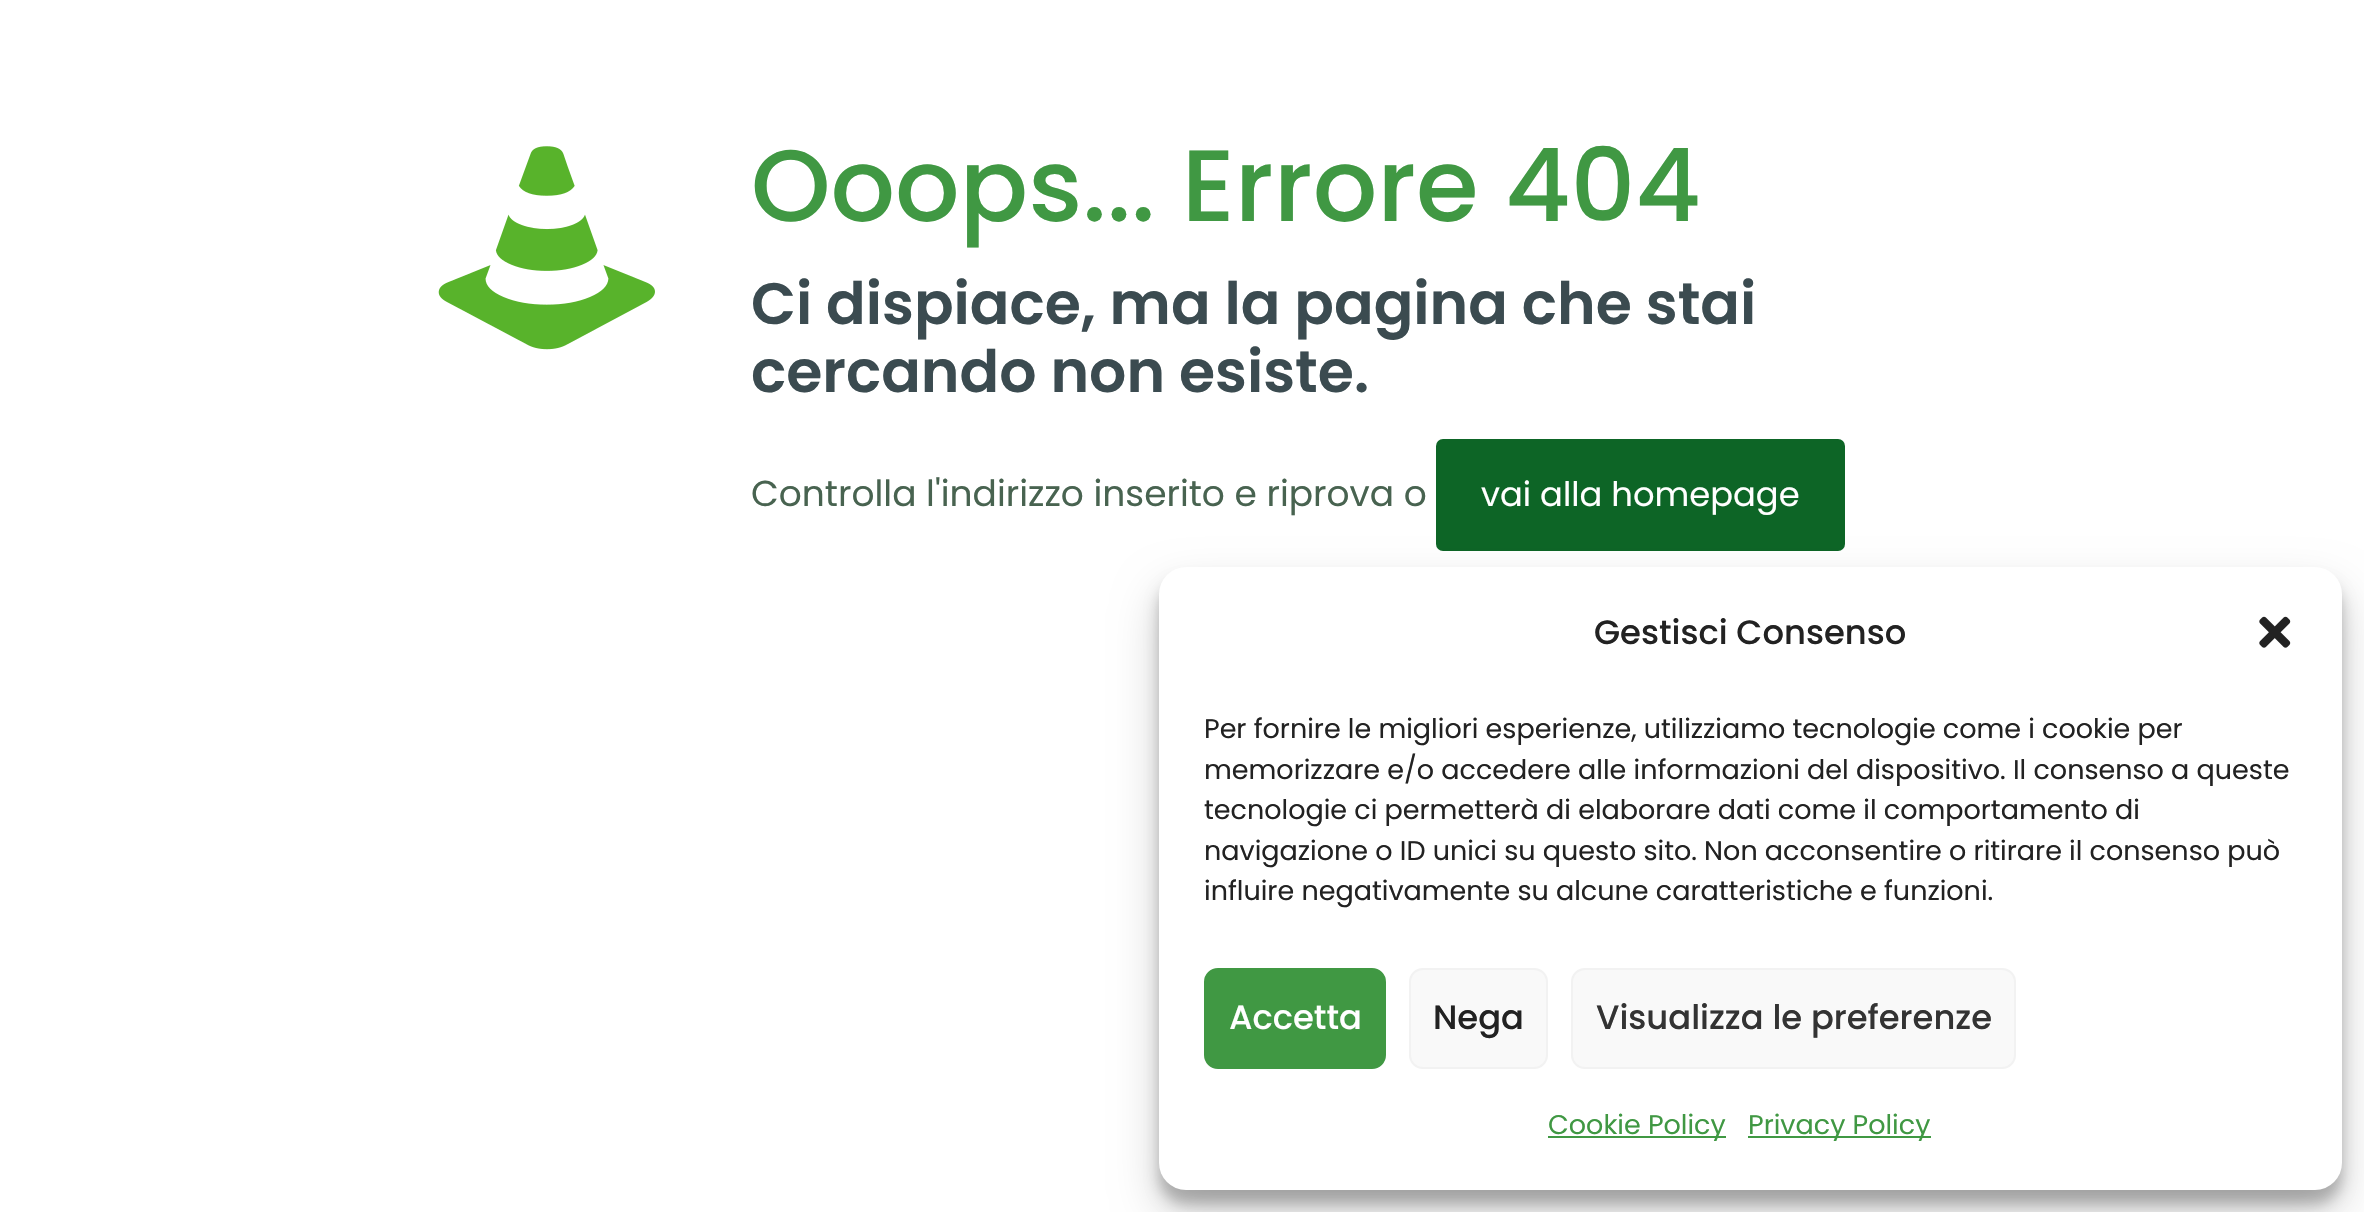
void draw(SkCanvas* canvas) {
  SkPaint paint;
  paint.setAntiAlias(true);
  auto face = [&](const char* family, int weight, float size, bool italic = false) {
    SkFontStyle style(weight, SkFontStyle::kNormal_Width,
      italic ? SkFontStyle::kItalic_Slant : SkFontStyle::kUpright_Slant);
    SkFont result(fontMgr->matchFamilyStyle(family, style), size);
    result.setSubpixel(true);
    return result;
  };
  auto paste = [&](const char* path, float x, float y, float w, float h) {
    auto image = SkImages::DeferredFromEncodedData(SkData::MakeFromFileName(path));
    canvas->drawImageRect(image, SkRect::MakeXYWH(x, y, w, h), SkSamplingOptions());
  };
  canvas->clear(0xffffffff);
  paste("img/1.png", 438, 146, 217, 204);
  paint.setColor(0xff0d6526);
  canvas->drawRoundRect(SkRect::MakeXYWH(1436, 439, 409, 112), 7, 7, paint);
  paint.setColor(0x3b000000);
  paint.setMaskFilter(SkMaskFilter::MakeBlur(kNormal_SkBlurStyle, 7));
  canvas->drawRoundRect(SkRect::MakeXYWH(1159, 581, 1183, 623), 27, 27, paint);
  paint.setMaskFilter(nullptr);
  paint.setColor(0x30000000);
  paint.setMaskFilter(SkMaskFilter::MakeBlur(kNormal_SkBlurStyle, 22.5f));
  canvas->drawRoundRect(SkRect::MakeXYWH(1159, 590, 1183, 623), 27, 27, paint);
  paint.setMaskFilter(nullptr);
  paint.setColor(0xffffffff);
  canvas->drawRoundRect(SkRect::MakeXYWH(1159, 567, 1183, 623), 27, 27, paint);
  paste("img/2.png", 2259, 616, 32, 32);
  paint.setColor(0xff409843);
  canvas->drawRoundRect(SkRect::MakeXYWH(1205, 969, 180, 99), 13, 13, paint);
  paint.setStroke(true);
  paint.setStrokeWidth(2);
  canvas->drawRoundRect(SkRect::MakeXYWH(1205, 969, 180, 99), 13, 13, paint);
  paint.setStroke(false);
  paint.setColor(0xfff9f9f9);
  canvas->drawRoundRect(SkRect::MakeXYWH(1410, 969, 137, 99), 13, 13, paint);
  paint.setStroke(true);
  paint.setColor(0xfff2f2f2);
  canvas->drawRoundRect(SkRect::MakeXYWH(1410, 969, 137, 99), 13, 13, paint);
  paint.setStroke(false);
  paint.setColor(0xfff9f9f9);
  canvas->drawRoundRect(SkRect::MakeXYWH(1572, 969, 443, 99), 13, 13, paint);
  paint.setStroke(true);
  paint.setColor(0xfff2f2f2);
  canvas->drawRoundRect(SkRect::MakeXYWH(1572, 969, 443, 99), 13, 13, paint);
  paint.setStroke(false);
  paint.setColor(0xff409843);
  canvas->drawRect(SkRect::MakeXYWH(1548, 1136, 178, 2), paint);
  canvas->drawRect(SkRect::MakeXYWH(1748, 1136, 183, 2), paint);
  auto f0 = face("Poppins", 500, 101.25f);
  canvas->drawString("Ooops... Errore 404", 751, 221, f0, paint);
  auto f1 = face("Poppins", 600, 58.5f);
  paint.setColor(0xff3b4b50);
  canvas->drawString("Ci dispiace, ma la pagina che stai", 751, 324, f1, paint);
  canvas->drawString("cercando non esiste.", 751, 392, f1, paint);
  auto f2 = face("Poppins", 400, 36);
  paint.setColor(0xff486350);
  canvas->drawString("Controlla l'indirizzo inserito e riprova o", 751, 506, f2, paint);
  auto f3 = face("Poppins", 400, 33.75f);
  paint.setColor(0xffffffff);
  canvas->drawString("vai alla homepage", 1481, 506, f3, paint);
  auto f4 = face("Poppins", 500, 33.75f);
  paint.setColor(0xff222222);
  canvas->drawString("Gestisci Consenso", 1594, 644, f4, paint);
  auto f5 = face("Poppins", 400, 27);
  {
    const struct { const char* s; float x, y; } items[] = {
      {"Per fornire le migliori esperienze, utilizziamo tecnologie come i cookie per", 1204, 738},
      {"memorizzare e/o accedere alle informazioni del dispositivo. Il consenso a queste", 1204, 779},
      {"tecnologie ci permetterà di elaborare dati come il comportamento di", 1204, 819},
      {"navigazione o ID unici su questo sito. Non acconsentire o ritirare il consenso può", 1204, 860},
      {"influire negativamente su alcune caratteristiche e funzioni.", 1204, 900},
    };
    for (auto [s, x, y] : items) {
      canvas->drawString(s, x, y, f5, paint);
    }
  }
  paint.setColor(0xffffffff);
  canvas->drawString("Accetta", 1229, 1029, f4, paint);
  paint.setColor(0xff222222);
  canvas->drawString("Nega", 1433, 1029, f4, paint);
  paint.setColor(0xff333333);
  canvas->drawString("Visualizza le preferenze", 1596, 1029, f4, paint);
  paint.setColor(0xff409843);
  canvas->drawString("Cookie Policy", 1548, 1134, f5, paint);
  canvas->drawString("Privacy Policy", 1748, 1134, f5, paint);
}
